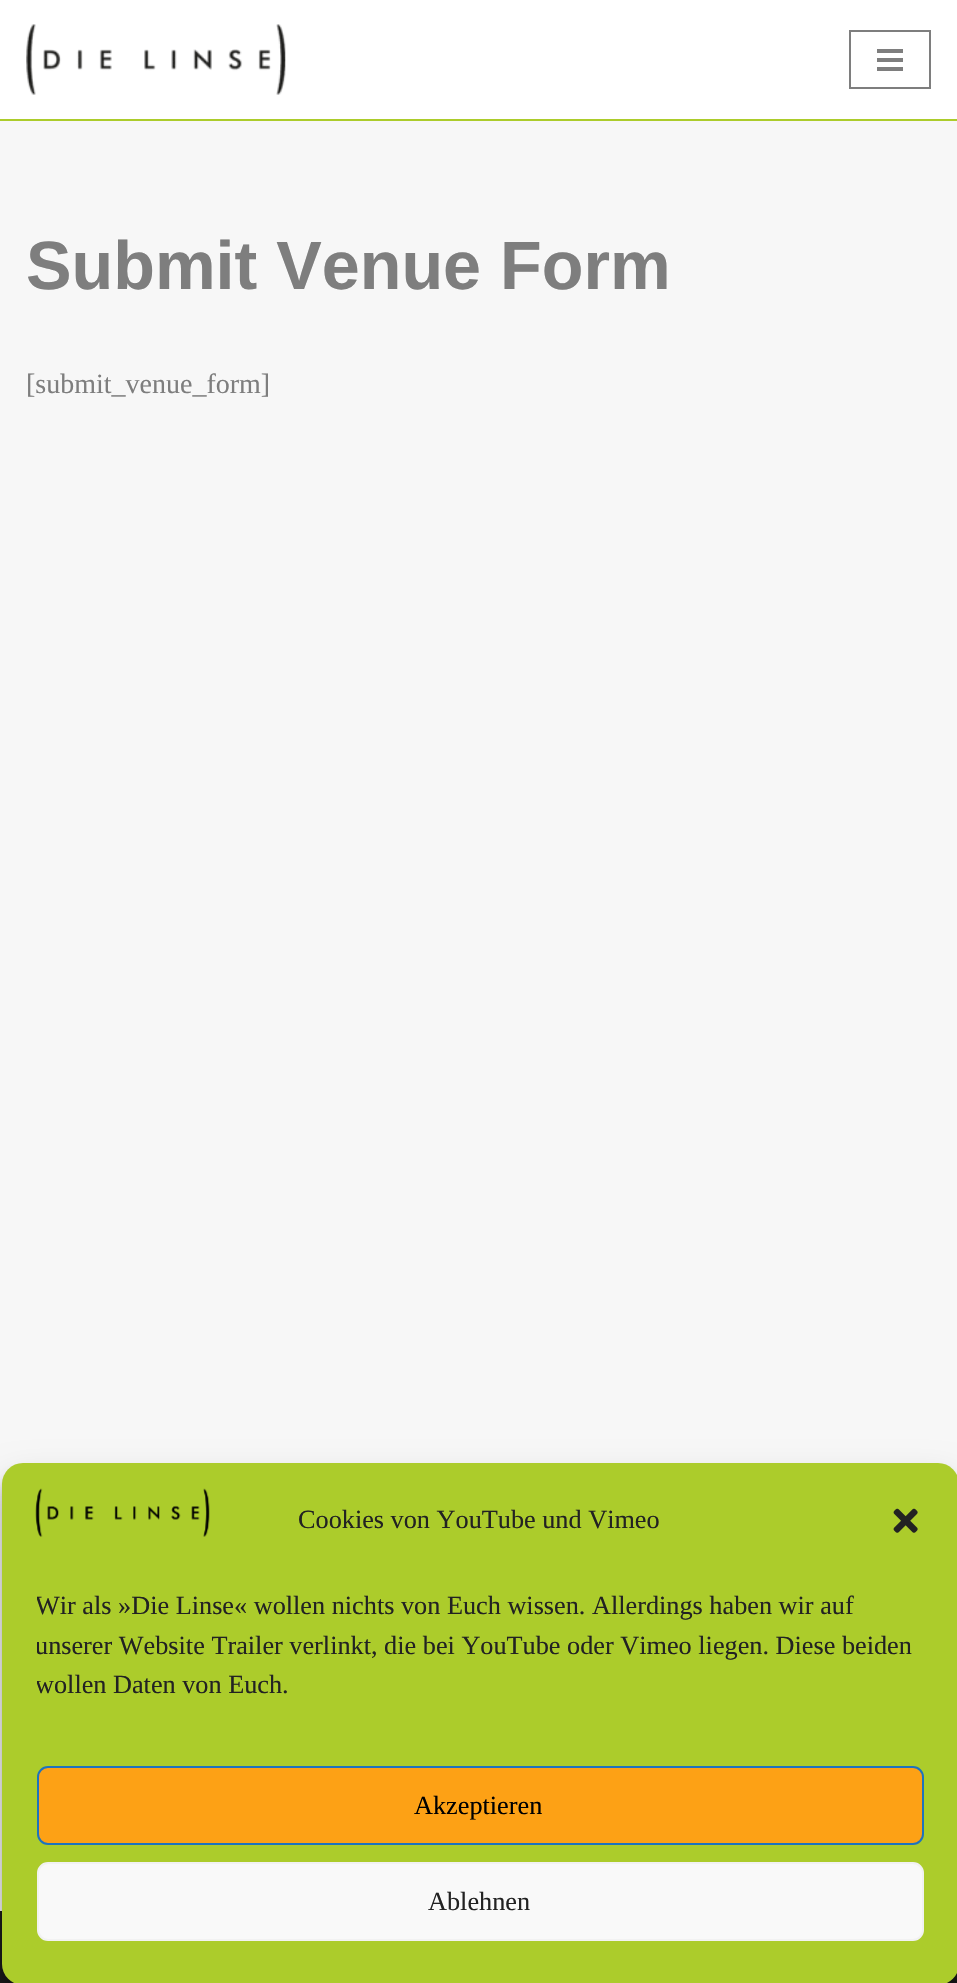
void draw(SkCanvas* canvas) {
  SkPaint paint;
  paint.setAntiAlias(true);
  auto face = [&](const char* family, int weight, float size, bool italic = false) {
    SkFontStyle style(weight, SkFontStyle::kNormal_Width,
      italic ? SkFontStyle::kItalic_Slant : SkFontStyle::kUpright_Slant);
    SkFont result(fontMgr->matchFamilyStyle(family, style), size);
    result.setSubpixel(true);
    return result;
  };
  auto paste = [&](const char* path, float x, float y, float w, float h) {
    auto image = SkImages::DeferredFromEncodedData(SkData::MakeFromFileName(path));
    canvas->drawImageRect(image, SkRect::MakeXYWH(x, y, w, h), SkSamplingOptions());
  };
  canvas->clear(0xfff7f7f7);
  paint.setColor(0xffffffff);
  canvas->drawRect(SkRect::MakeXYWH(0, 0, 957, 119), paint);
  paint.setColor(0xffaccc2b);
  canvas->drawRect(SkRect::MakeXYWH(0, 119, 957, 2), paint);
  paste("img/1.png", 26, 24, 260, 71);
  paint.setStroke(true);
  paint.setStrokeWidth(2);
  paint.setColor(0xff7e7e7e);
  canvas->drawRect(SkRect::MakeXYWH(850, 31, 80, 57), paint);
  paint.setStroke(false);
  {
    const struct { float x, y, w, h; SkColor color; } items[] = {
      {877, 49, 26, 4, 0xff7e7e7e},
      {877, 58, 26, 4, 0xff7e7e7e},
      {877, 67, 26, 4, 0xff7e7e7e},
      {0, 1911, 957, 72, 0xff1a1a1a},
    };
    for (auto [x, y, w, h, color] : items) {
      paint.setColor(color);
      canvas->drawRect(SkRect::MakeXYWH(x, y, w, h), paint);
    }
  }
  paint.setColor(0x3b000000);
  paint.setMaskFilter(SkMaskFilter::MakeBlur(kNormal_SkBlurStyle, 5));
  canvas->drawRoundRect(SkRect::MakeXYWH(2, 1474, 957, 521), 21, 21, paint);
  paint.setMaskFilter(nullptr);
  paint.setColor(0x30000000);
  paint.setMaskFilter(SkMaskFilter::MakeBlur(kNormal_SkBlurStyle, 17.5f));
  canvas->drawRoundRect(SkRect::MakeXYWH(2, 1481, 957, 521), 21, 21, paint);
  paint.setMaskFilter(nullptr);
  paint.setColor(0xffaccc2b);
  canvas->drawRoundRect(SkRect::MakeXYWH(2, 1463, 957, 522), 21, 21, paint);
  paste("img/2.png", 35, 1488, 175, 49);
  paste("img/3.png", 893, 1508, 25, 25);
  paint.setColor(0xfffda115);
  canvas->drawRoundRect(SkRect::MakeXYWH(38, 1767, 885, 77), 10, 10, paint);
  paint.setStroke(true);
  paint.setColor(0xff1e73be);
  canvas->drawRoundRect(SkRect::MakeXYWH(38, 1767, 885, 77), 10, 10, paint);
  paint.setStroke(false);
  paint.setColor(0xfff9f9f9);
  canvas->drawRoundRect(SkRect::MakeXYWH(38, 1863, 885, 77), 10, 10, paint);
  paint.setStroke(true);
  paint.setColor(0xfff2f2f2);
  canvas->drawRoundRect(SkRect::MakeXYWH(38, 1863, 885, 77), 10, 10, paint);
  auto f0 = face("Liberation Sans", 700, 68.25f);
  paint.setStroke(false);
  paint.setColor(0xff7e7e7e);
  canvas->drawString("Submit Venue Form", 26, 289, f0, paint);
  auto f1 = face("Liberation Serif", 400, 28);
  canvas->drawString("[submit_venue_form]", 26, 393, f1, paint);
  auto f2 = face("Liberation Serif", 400, 26.25f);
  paint.setColor(0xff222222);
  canvas->drawString("Cookies von YouTube und Vimeo", 298, 1528, f2, paint);
  canvas->save();
  canvas->clipRect(SkRect::MakeXYWH(37, 1587, 887, 126));
  {
    const struct { const char* s; float x, y; } items[] = {
      {"Wir als »Die Linse« wollen nichts von Euch wissen. Allerdings haben wir auf", 35, 1614},
      {"unserer Website Trailer verlinkt, die bei YouTube oder Vimeo liegen. Diese beiden", 35, 1654},
      {"wollen Daten von Euch.", 35, 1693},
    };
    for (auto [s, x, y] : items) {
      canvas->drawString(s, x, y, f2, paint);
    }
  }
  canvas->restore();
  paint.setColor(0xff000000);
  canvas->drawString("Akzeptieren", 414, 1814, f2, paint);
  paint.setColor(0xff222222);
  canvas->drawString("Ablehnen", 428, 1910, f2, paint);
}
